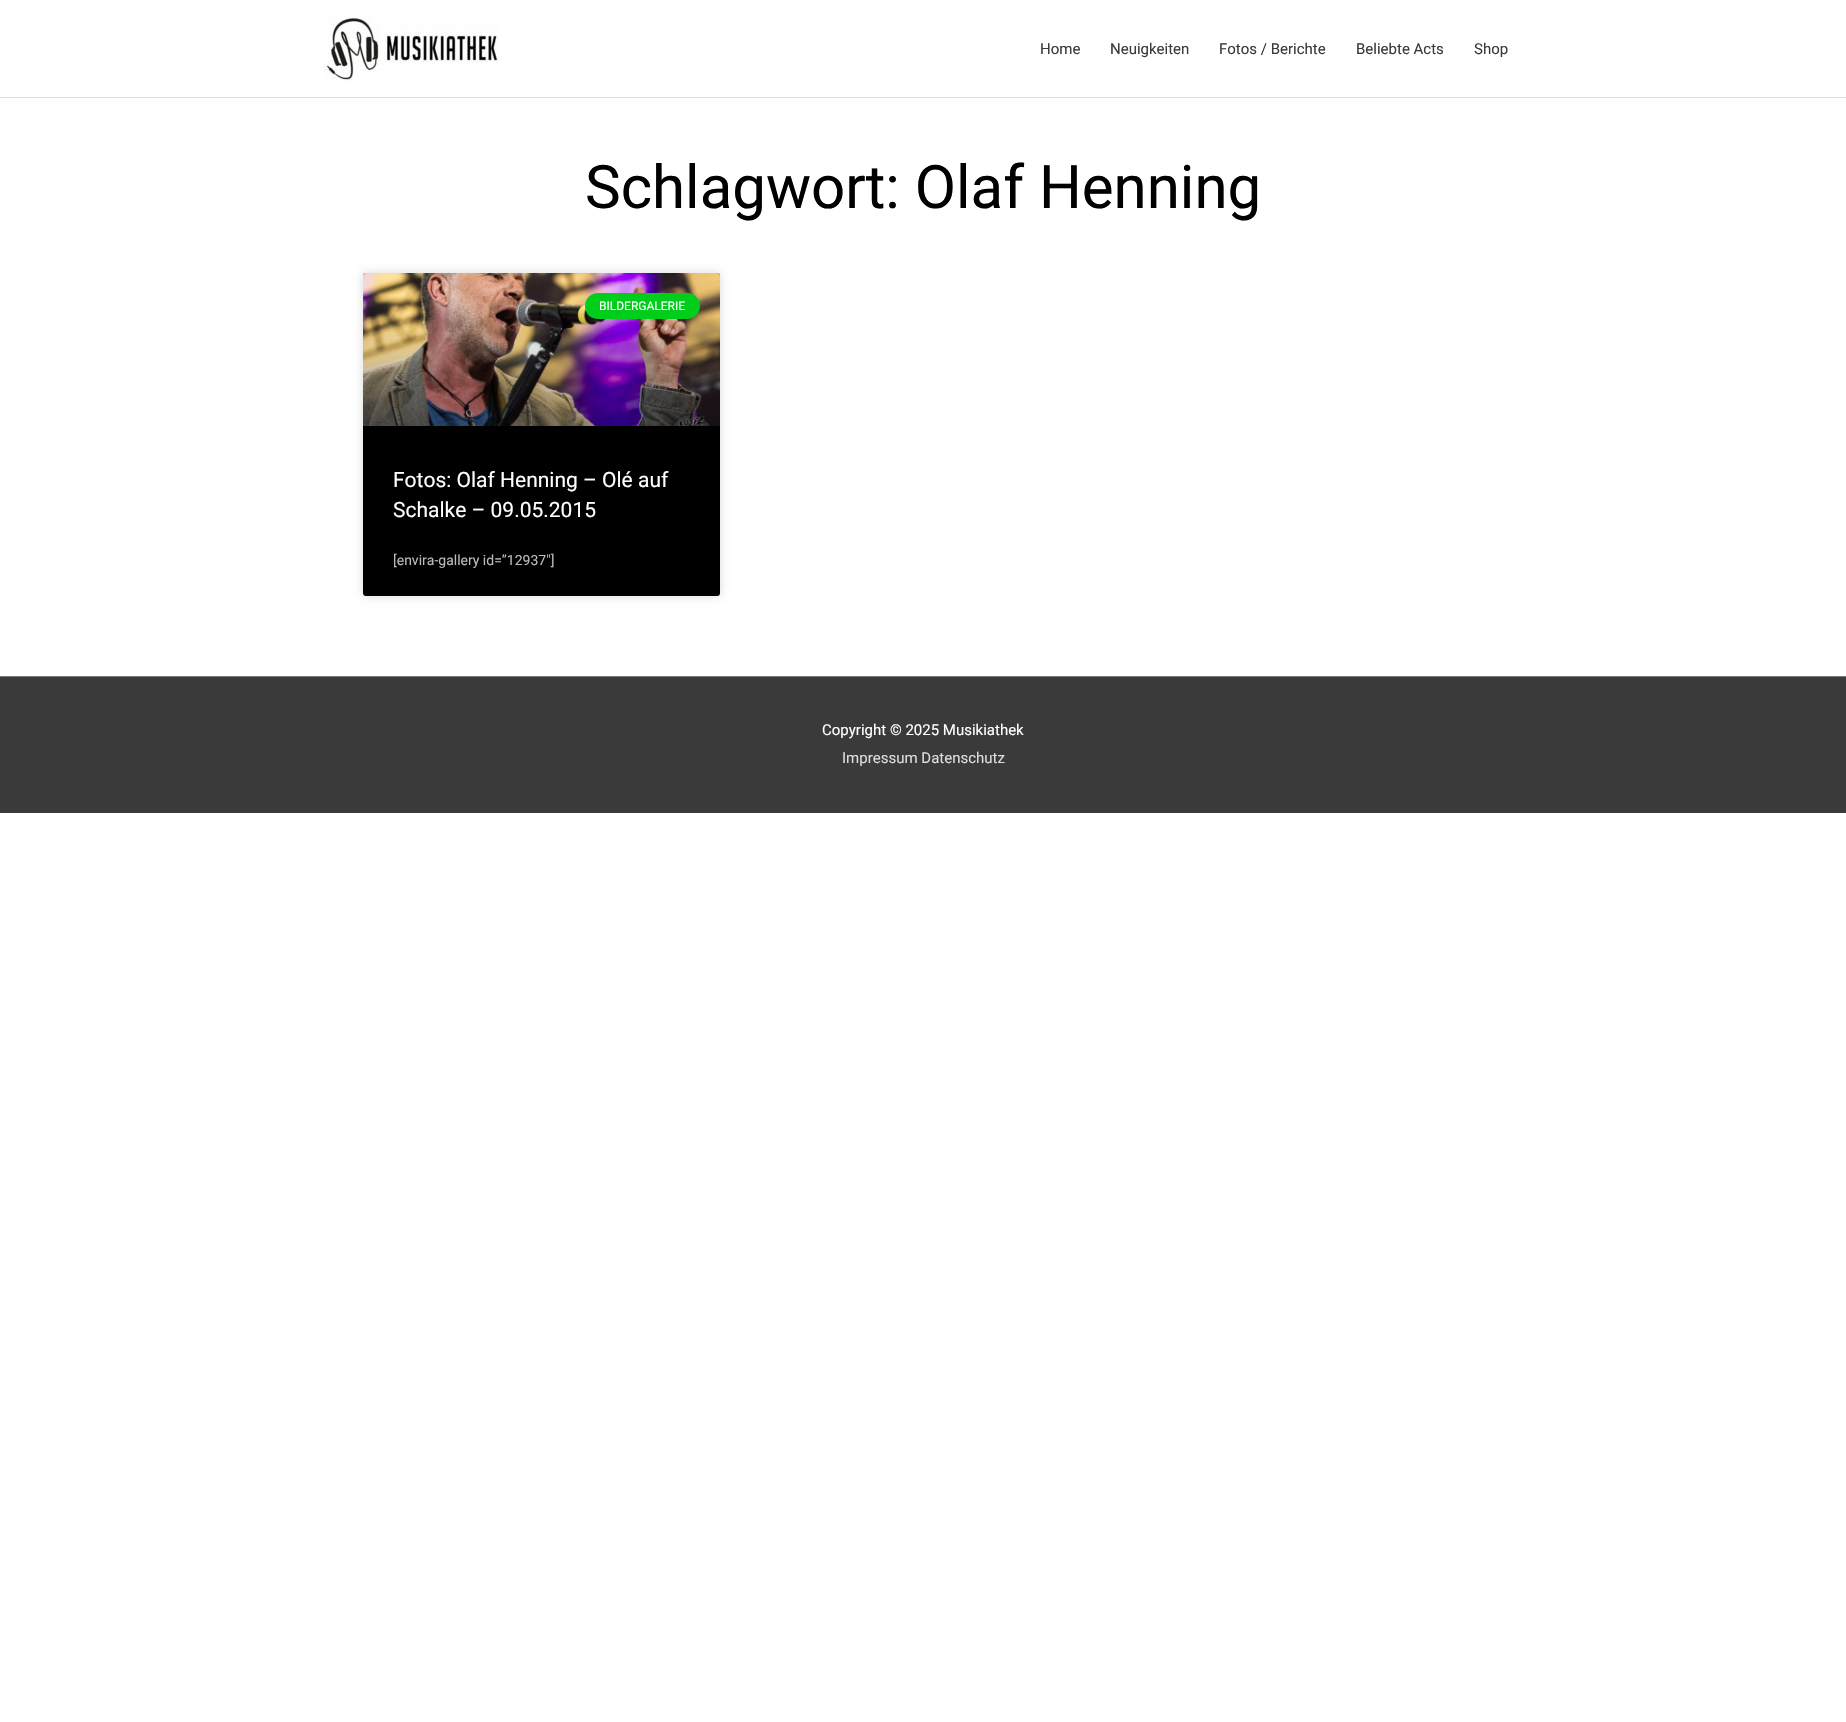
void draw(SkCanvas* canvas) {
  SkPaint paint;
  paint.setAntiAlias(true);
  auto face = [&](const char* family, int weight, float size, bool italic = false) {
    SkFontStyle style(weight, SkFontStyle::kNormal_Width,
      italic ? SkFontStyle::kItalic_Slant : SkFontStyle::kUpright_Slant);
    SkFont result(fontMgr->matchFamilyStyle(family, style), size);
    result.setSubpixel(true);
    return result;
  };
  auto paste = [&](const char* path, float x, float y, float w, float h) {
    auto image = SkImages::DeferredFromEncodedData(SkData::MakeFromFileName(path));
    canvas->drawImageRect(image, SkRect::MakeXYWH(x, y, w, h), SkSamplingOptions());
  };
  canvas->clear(0xffffffff);
  paint.setColor(0xffdddddd);
  canvas->drawRect(SkRect::MakeXYWH(0, 97, 1846, 1), paint);
  paste("img/1.png", 323, 15, 176, 67);
  paint.setColor(0x26000000);
  paint.setMaskFilter(SkMaskFilter::MakeBlur(kNormal_SkBlurStyle, 5));
  canvas->drawRoundRect(SkRect::MakeXYWH(363, 273, 357, 323), 3, 3, paint);
  paint.setMaskFilter(nullptr);
  paint.setColor(0xff000000);
  canvas->drawRoundRect(SkRect::MakeXYWH(363, 273, 357, 323), 3, 3, paint);
  paste("img/2.png", 363, 273, 357, 153);
  {
    const SkColor colors[] = {0x59000000, 0x00000000};
    const float stops[] = {0, 0.75f};
    const SkPoint ends[] = {{542, 426}, {542, 273}};
    paint.setShader(SkGradientShader::MakeLinear(ends, colors, stops, 2, SkTileMode::kClamp));
    paint.setAlpha(255);
  }
  canvas->drawRect(SkRect::MakeXYWH(363, 318, 357, 108), paint);
  paint.setShader(nullptr);
  paint.setColor(0xff00ce1b);
  canvas->drawRoundRect(SkRect::MakeXYWH(585, 293, 115, 26), 13, 13, paint);
  paint.setColor(0xff7a7a7a);
  canvas->drawRect(SkRect::MakeXYWH(0, 676, 1846, 1), paint);
  paint.setColor(0xff3a3a3a);
  canvas->drawRect(SkRect::MakeXYWH(0, 677, 1846, 136), paint);
  auto f0 = face("Roboto", 400, 15);
  {
    const struct { const char* s; float x, y; } items[] = {
      {"Home", 1040, 54},
      {"Neuigkeiten", 1110, 54},
      {"Fotos / Berichte", 1219, 54},
      {"Beliebte Acts", 1356, 54},
      {"Shop", 1474, 54},
    };
    for (auto [s, x, y] : items) {
      canvas->drawString(s, x, y, f0, paint);
    }
  }
  auto f1 = face("Roboto", 400, 60);
  paint.setColor(0xff000000);
  canvas->drawString("Schlagwort: Olaf Henning", 585, 208, f1, paint);
  auto f2 = face("Roboto", 400, 12);
  paint.setColor(0xffffffff);
  canvas->drawString("BILDERGALERIE", 599, 310, f2, paint);
  auto f3 = face("Roboto", 400, 21);
  canvas->drawString("Fotos: Olaf Henning – Olé auf", 393, 487, f3, paint);
  canvas->drawString("Schalke – 09.05.2015", 393, 517, f3, paint);
  auto f4 = face("Roboto", 400, 14);
  paint.setColor(0xffbcbcbc);
  canvas->drawString("[envira-gallery id=”12937″]", 393, 565, f4, paint);
  paint.setColor(0xffffffff);
  canvas->drawString("Copyright © 2025 Musikiathek", 822, 735, f0, paint);
  paint.setColor(0xffdddddd);
  canvas->drawString("Impressum Datenschutz", 842, 763, f0, paint);
}
